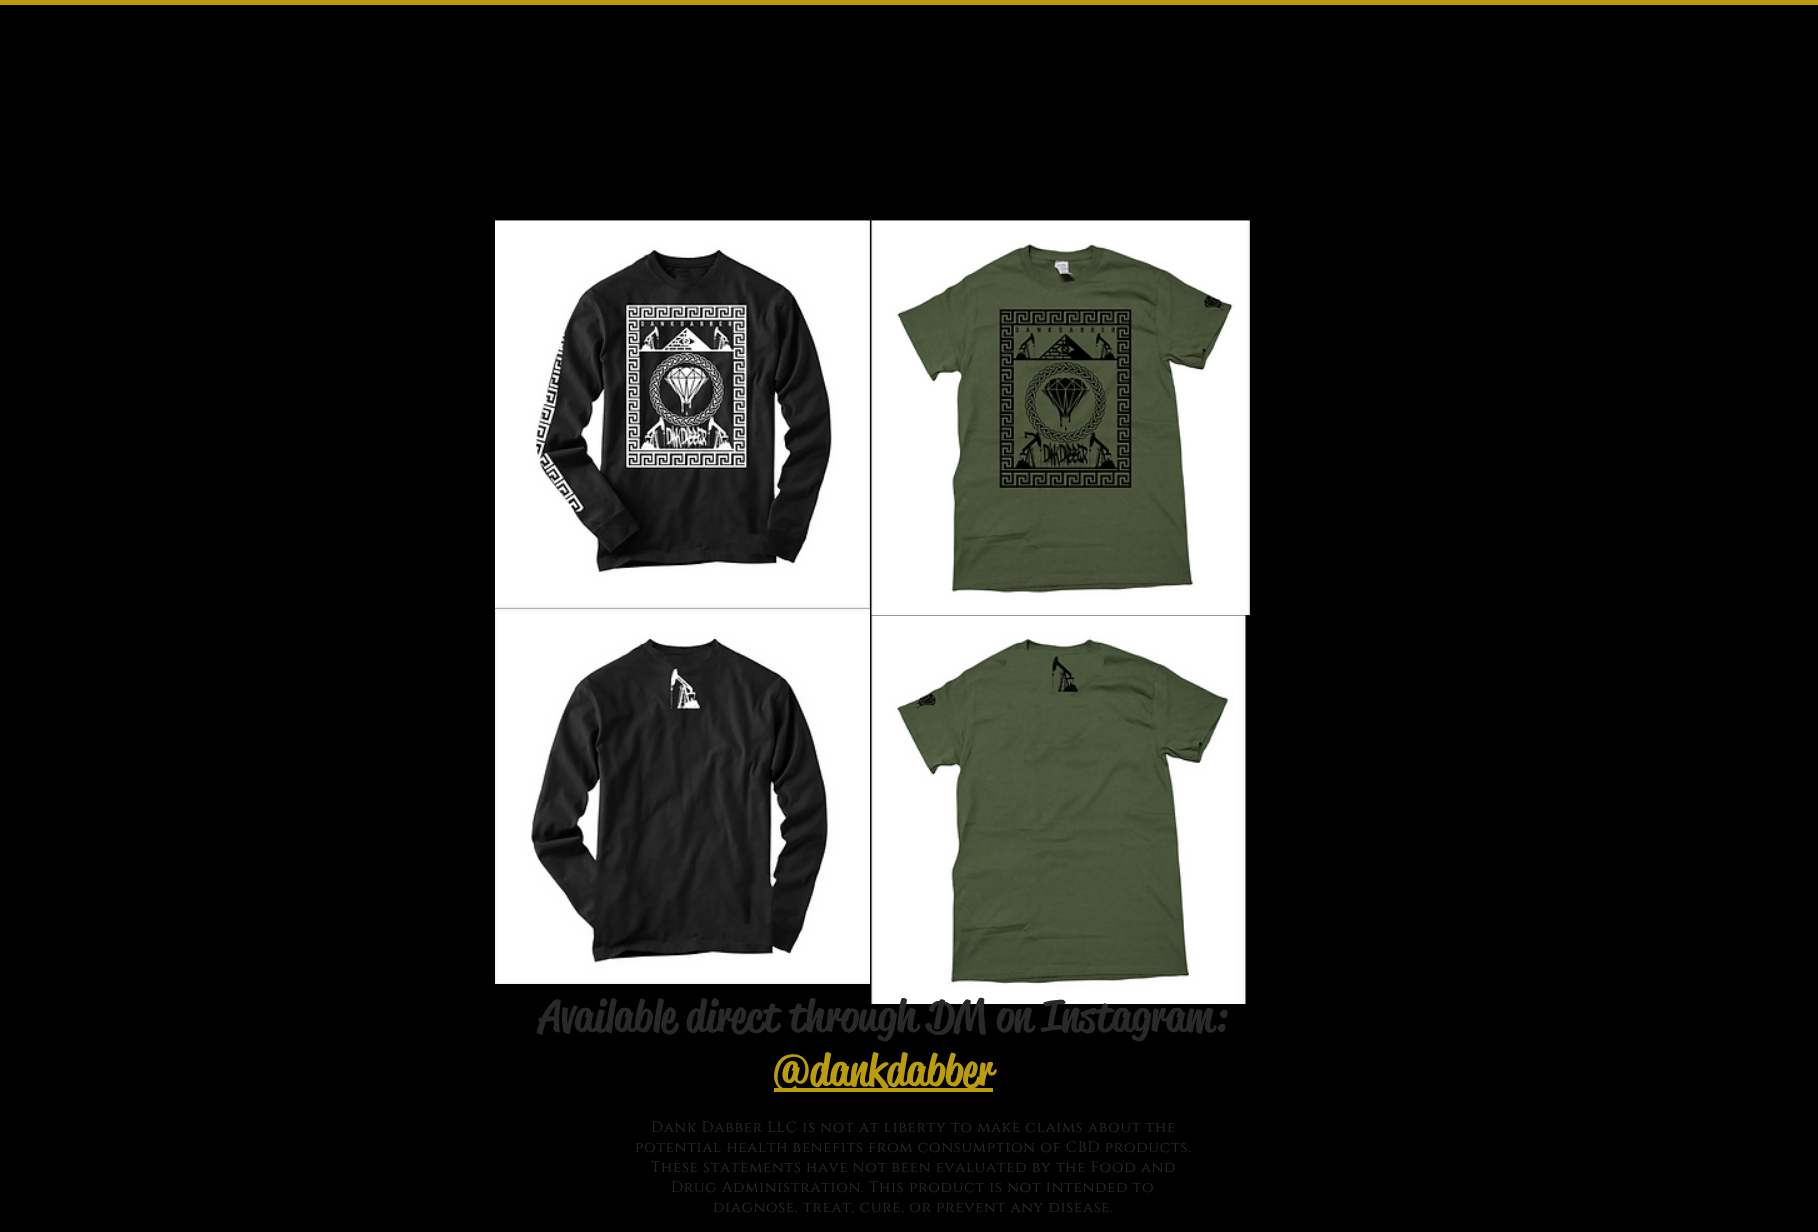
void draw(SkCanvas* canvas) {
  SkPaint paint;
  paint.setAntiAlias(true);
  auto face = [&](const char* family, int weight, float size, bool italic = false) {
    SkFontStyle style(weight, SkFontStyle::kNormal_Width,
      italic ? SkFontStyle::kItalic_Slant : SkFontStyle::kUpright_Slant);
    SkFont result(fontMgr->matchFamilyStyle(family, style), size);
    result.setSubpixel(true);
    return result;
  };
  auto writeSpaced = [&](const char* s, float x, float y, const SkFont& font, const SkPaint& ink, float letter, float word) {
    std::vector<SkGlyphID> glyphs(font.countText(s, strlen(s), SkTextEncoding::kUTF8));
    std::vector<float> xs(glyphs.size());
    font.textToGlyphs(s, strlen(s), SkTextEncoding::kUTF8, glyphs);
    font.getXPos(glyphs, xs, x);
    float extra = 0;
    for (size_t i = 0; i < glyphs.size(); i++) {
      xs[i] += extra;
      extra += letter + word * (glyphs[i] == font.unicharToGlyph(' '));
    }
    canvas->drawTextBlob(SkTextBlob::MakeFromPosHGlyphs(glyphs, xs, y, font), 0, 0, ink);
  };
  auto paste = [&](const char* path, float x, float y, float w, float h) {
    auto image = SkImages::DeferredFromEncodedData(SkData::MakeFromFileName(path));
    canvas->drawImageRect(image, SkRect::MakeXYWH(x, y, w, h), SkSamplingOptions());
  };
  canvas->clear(0xff000000);
  paint.setColor(0xffba9c0d);
  canvas->drawRect(SkRect::MakeXYWH(0, 0, 1818, 5), paint);
  paste("img/1.png", 495, 220, 375, 389);
  paste("img/2.png", 871, 220, 379, 396);
  paste("img/3.png", 495, 609, 375, 375);
  paste("img/4.png", 871, 615, 376, 389);
  canvas->drawRect(SkRect::MakeXYWH(774, 1088, 219, 4), paint);
  auto f0 = face("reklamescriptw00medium", 500, 43.75f);
  paint.setColor(0xff292929);
  canvas->drawString("Available direct through DM on Instagram:", 539, 1031, f0, paint);
  paint.setColor(0xffba9c0d);
  canvas->drawString("@dankdabber", 773, 1085, f0, paint);
  auto f1 = face("Cinzel", 400, 15);
  paint.setColor(0xff292929);
  {
    const struct { const char* s; float x, y; } items[] = {
      {"Dank Dabber LLC is not at liberty to make claims about the", 651, 1132},
      {"potential health benefits from consumption of CBD products.", 635, 1152},
      {"These statements have not been evaluated by the Food and", 651, 1172},
      {"Drug Administration. This product is not intended to", 671, 1192},
      {"diagnose, treat, cure, or prevent any disease.", 713, 1212},
    };
    for (auto [s, x, y] : items) {
      writeSpaced(s, x, y, f1, paint, 0.75f, 0);
    }
  }
}
